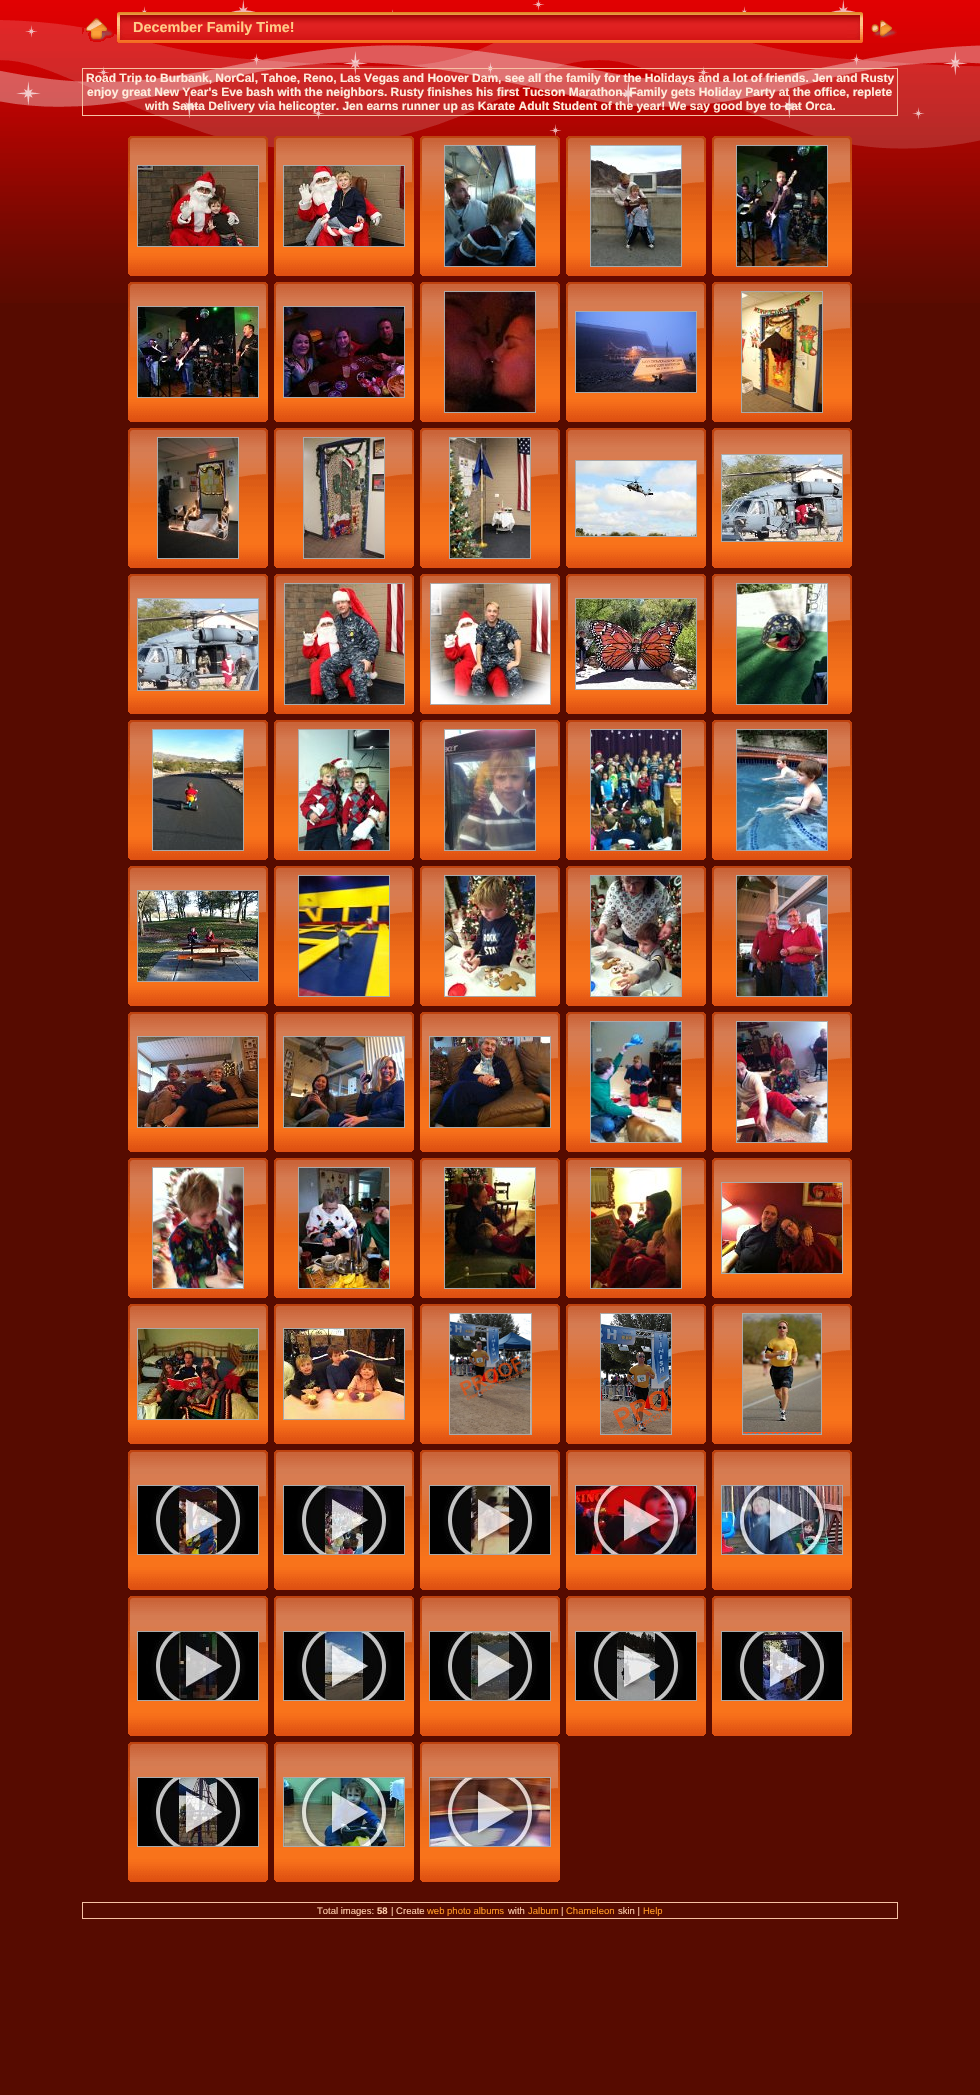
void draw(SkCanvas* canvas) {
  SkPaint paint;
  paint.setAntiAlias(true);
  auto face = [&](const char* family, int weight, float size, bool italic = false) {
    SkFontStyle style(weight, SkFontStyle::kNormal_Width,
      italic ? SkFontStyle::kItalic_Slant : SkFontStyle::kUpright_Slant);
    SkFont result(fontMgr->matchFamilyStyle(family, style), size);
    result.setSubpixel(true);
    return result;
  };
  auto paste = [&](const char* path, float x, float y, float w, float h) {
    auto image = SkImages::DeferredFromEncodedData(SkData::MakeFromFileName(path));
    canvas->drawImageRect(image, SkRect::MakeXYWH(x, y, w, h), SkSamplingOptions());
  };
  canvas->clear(0xff560b00);
  paste("img/1.png", 0, 0, 980, 303);
  paste("img/2.png", 82, 18, 31, 24);
  paste("img/3.png", 113, 12, 20, 31);
  paste("img/4.png", 133, 12, 714, 31);
  paste("img/5.png", 847, 12, 16, 31);
  paste("img/6.png", 871, 20, 26, 18);
  {
    const struct { float x, y, w, h; SkColor color; } items[] = {
      {82, 68, 816, 1, 0xfff6c2a4},
      {897, 68, 1, 48, 0xfff6c2a4},
      {82, 115, 816, 1, 0xfff6c2a4},
      {82, 68, 1, 48, 0xfff6c2a4},
    };
    for (auto [x, y, w, h, color] : items) {
      paint.setColor(color);
      canvas->drawRect(SkRect::MakeXYWH(x, y, w, h), paint);
    }
  }
  paste("img/7.png", 128, 136, 140, 140);
  paint.setStroke(true);
  paint.setStrokeWidth(1);
  paint.setColor(0xffaaaaaa);
  canvas->drawRect(SkRect::MakeXYWH(137.5f, 165.5f, 121, 81), paint);
  paste("img/8.png", 138, 166, 120, 80);
  paste("img/9.png", 274, 136, 140, 140);
  canvas->drawRect(SkRect::MakeXYWH(283.5f, 165.5f, 121, 81), paint);
  paste("img/10.png", 284, 166, 120, 80);
  paste("img/11.png", 420, 136, 140, 140);
  canvas->drawRect(SkRect::MakeXYWH(444.5f, 145.5f, 91, 121), paint);
  paste("img/12.png", 445, 146, 90, 120);
  paste("img/11.png", 566, 136, 140, 140);
  canvas->drawRect(SkRect::MakeXYWH(590.5f, 145.5f, 91, 121), paint);
  paste("img/13.png", 591, 146, 90, 120);
  paste("img/7.png", 712, 136, 140, 140);
  canvas->drawRect(SkRect::MakeXYWH(736.5f, 145.5f, 91, 121), paint);
  paste("img/14.png", 737, 146, 90, 120);
  paste("img/15.png", 128, 282, 140, 140);
  canvas->drawRect(SkRect::MakeXYWH(137.5f, 306.5f, 121, 91), paint);
  paste("img/16.png", 138, 307, 120, 90);
  paste("img/15.png", 274, 282, 140, 140);
  canvas->drawRect(SkRect::MakeXYWH(283.5f, 306.5f, 121, 91), paint);
  paste("img/17.png", 284, 307, 120, 90);
  paste("img/15.png", 420, 282, 140, 140);
  canvas->drawRect(SkRect::MakeXYWH(444.5f, 291.5f, 91, 121), paint);
  paste("img/18.png", 445, 292, 90, 120);
  paste("img/15.png", 566, 282, 140, 140);
  canvas->drawRect(SkRect::MakeXYWH(575.5f, 311.5f, 121, 81), paint);
  paste("img/19.png", 576, 312, 120, 80);
  paste("img/15.png", 712, 282, 140, 140);
  canvas->drawRect(SkRect::MakeXYWH(741.5f, 291.5f, 81, 121), paint);
  paste("img/20.png", 742, 292, 80, 120);
  paste("img/21.png", 128, 428, 140, 140);
  canvas->drawRect(SkRect::MakeXYWH(157.5f, 437.5f, 81, 121), paint);
  paste("img/22.png", 158, 438, 80, 120);
  paste("img/21.png", 274, 428, 140, 140);
  canvas->drawRect(SkRect::MakeXYWH(303.5f, 437.5f, 81, 121), paint);
  paste("img/23.png", 304, 438, 80, 120);
  paste("img/21.png", 420, 428, 140, 140);
  canvas->drawRect(SkRect::MakeXYWH(449.5f, 437.5f, 81, 121), paint);
  paste("img/24.png", 450, 438, 80, 120);
  paste("img/21.png", 566, 428, 140, 140);
  canvas->drawRect(SkRect::MakeXYWH(575.5f, 460.5f, 121, 76), paint);
  paste("img/25.png", 576, 461, 120, 75);
  paste("img/21.png", 712, 428, 140, 140);
  canvas->drawRect(SkRect::MakeXYWH(721.5f, 454.5f, 121, 87), paint);
  paste("img/26.png", 722, 455, 120, 86);
  paste("img/21.png", 128, 574, 140, 140);
  canvas->drawRect(SkRect::MakeXYWH(137.5f, 598.5f, 121, 92), paint);
  paste("img/27.png", 138, 599, 120, 91);
  paste("img/21.png", 274, 574, 140, 140);
  canvas->drawRect(SkRect::MakeXYWH(284.5f, 583.5f, 120, 121), paint);
  paste("img/28.png", 285, 584, 119, 120);
  paste("img/21.png", 420, 574, 140, 140);
  canvas->drawRect(SkRect::MakeXYWH(430.5f, 583.5f, 120, 121), paint);
  paste("img/29.png", 431, 584, 119, 120);
  paste("img/21.png", 566, 574, 140, 140);
  canvas->drawRect(SkRect::MakeXYWH(575.5f, 598.5f, 121, 91), paint);
  paste("img/30.png", 576, 599, 120, 90);
  paste("img/21.png", 712, 574, 140, 140);
  canvas->drawRect(SkRect::MakeXYWH(736.5f, 583.5f, 91, 121), paint);
  paste("img/31.png", 737, 584, 90, 120);
  paste("img/21.png", 128, 720, 140, 140);
  canvas->drawRect(SkRect::MakeXYWH(152.5f, 729.5f, 91, 121), paint);
  paste("img/32.png", 153, 730, 90, 120);
  paste("img/21.png", 274, 720, 140, 140);
  canvas->drawRect(SkRect::MakeXYWH(298.5f, 729.5f, 91, 121), paint);
  paste("img/33.png", 299, 730, 90, 120);
  paste("img/21.png", 420, 720, 140, 140);
  canvas->drawRect(SkRect::MakeXYWH(444.5f, 729.5f, 91, 121), paint);
  paste("img/34.png", 445, 730, 90, 120);
  paste("img/21.png", 566, 720, 140, 140);
  canvas->drawRect(SkRect::MakeXYWH(590.5f, 729.5f, 91, 121), paint);
  paste("img/35.png", 591, 730, 90, 120);
  paste("img/21.png", 712, 720, 140, 140);
  canvas->drawRect(SkRect::MakeXYWH(736.5f, 729.5f, 91, 121), paint);
  paste("img/36.png", 737, 730, 90, 120);
  paste("img/21.png", 128, 866, 140, 140);
  canvas->drawRect(SkRect::MakeXYWH(137.5f, 890.5f, 121, 91), paint);
  paste("img/37.png", 138, 891, 120, 90);
  paste("img/21.png", 274, 866, 140, 140);
  canvas->drawRect(SkRect::MakeXYWH(298.5f, 875.5f, 91, 121), paint);
  paste("img/38.png", 299, 876, 90, 120);
  paste("img/21.png", 420, 866, 140, 140);
  canvas->drawRect(SkRect::MakeXYWH(444.5f, 875.5f, 91, 121), paint);
  paste("img/39.png", 445, 876, 90, 120);
  paste("img/21.png", 566, 866, 140, 140);
  canvas->drawRect(SkRect::MakeXYWH(590.5f, 875.5f, 91, 121), paint);
  paste("img/40.png", 591, 876, 90, 120);
  paste("img/21.png", 712, 866, 140, 140);
  canvas->drawRect(SkRect::MakeXYWH(736.5f, 875.5f, 91, 121), paint);
  paste("img/41.png", 737, 876, 90, 120);
  paste("img/21.png", 128, 1012, 140, 140);
  canvas->drawRect(SkRect::MakeXYWH(137.5f, 1036.5f, 121, 91), paint);
  paste("img/42.png", 138, 1037, 120, 90);
  paste("img/21.png", 274, 1012, 140, 140);
  canvas->drawRect(SkRect::MakeXYWH(283.5f, 1036.5f, 121, 91), paint);
  paste("img/43.png", 284, 1037, 120, 90);
  paste("img/21.png", 420, 1012, 140, 140);
  canvas->drawRect(SkRect::MakeXYWH(429.5f, 1036.5f, 121, 91), paint);
  paste("img/44.png", 430, 1037, 120, 90);
  paste("img/21.png", 566, 1012, 140, 140);
  canvas->drawRect(SkRect::MakeXYWH(590.5f, 1021.5f, 91, 121), paint);
  paste("img/45.png", 591, 1022, 90, 120);
  paste("img/21.png", 712, 1012, 140, 140);
  canvas->drawRect(SkRect::MakeXYWH(736.5f, 1021.5f, 91, 121), paint);
  paste("img/46.png", 737, 1022, 90, 120);
  paste("img/21.png", 128, 1158, 140, 140);
  canvas->drawRect(SkRect::MakeXYWH(152.5f, 1167.5f, 91, 121), paint);
  paste("img/47.png", 153, 1168, 90, 120);
  paste("img/21.png", 274, 1158, 140, 140);
  canvas->drawRect(SkRect::MakeXYWH(298.5f, 1167.5f, 91, 121), paint);
  paste("img/48.png", 299, 1168, 90, 120);
  paste("img/21.png", 420, 1158, 140, 140);
  canvas->drawRect(SkRect::MakeXYWH(444.5f, 1167.5f, 91, 121), paint);
  paste("img/49.png", 445, 1168, 90, 120);
  paste("img/21.png", 566, 1158, 140, 140);
  canvas->drawRect(SkRect::MakeXYWH(590.5f, 1167.5f, 91, 121), paint);
  paste("img/50.png", 591, 1168, 90, 120);
  paste("img/21.png", 712, 1158, 140, 140);
  canvas->drawRect(SkRect::MakeXYWH(721.5f, 1182.5f, 121, 91), paint);
  paste("img/51.png", 722, 1183, 120, 90);
  paste("img/21.png", 128, 1304, 140, 140);
  canvas->drawRect(SkRect::MakeXYWH(137.5f, 1328.5f, 121, 91), paint);
  paste("img/52.png", 138, 1329, 120, 90);
  paste("img/21.png", 274, 1304, 140, 140);
  canvas->drawRect(SkRect::MakeXYWH(283.5f, 1328.5f, 121, 91), paint);
  paste("img/53.png", 284, 1329, 120, 90);
  paste("img/21.png", 420, 1304, 140, 140);
  canvas->drawRect(SkRect::MakeXYWH(449.5f, 1313.5f, 82, 121), paint);
  paste("img/54.png", 450, 1314, 81, 120);
  paste("img/21.png", 566, 1304, 140, 140);
  canvas->drawRect(SkRect::MakeXYWH(600.5f, 1313.5f, 71, 121), paint);
  paste("img/55.png", 601, 1314, 70, 120);
  paste("img/21.png", 712, 1304, 140, 140);
  canvas->drawRect(SkRect::MakeXYWH(742.5f, 1313.5f, 79, 121), paint);
  paste("img/56.png", 743, 1314, 78, 120);
  paste("img/21.png", 128, 1450, 140, 140);
  canvas->drawRect(SkRect::MakeXYWH(137.5f, 1485.5f, 121, 69), paint);
  paste("img/57.png", 138, 1486, 120, 68);
  paste("img/21.png", 274, 1450, 140, 140);
  canvas->drawRect(SkRect::MakeXYWH(283.5f, 1485.5f, 121, 69), paint);
  paste("img/58.png", 284, 1486, 120, 68);
  paste("img/21.png", 420, 1450, 140, 140);
  canvas->drawRect(SkRect::MakeXYWH(429.5f, 1485.5f, 121, 69), paint);
  paste("img/59.png", 430, 1486, 120, 68);
  paste("img/21.png", 566, 1450, 140, 140);
  canvas->drawRect(SkRect::MakeXYWH(575.5f, 1485.5f, 121, 69), paint);
  paste("img/60.png", 576, 1486, 120, 68);
  paste("img/21.png", 712, 1450, 140, 140);
  canvas->drawRect(SkRect::MakeXYWH(721.5f, 1485.5f, 121, 69), paint);
  paste("img/61.png", 722, 1486, 120, 68);
  paste("img/21.png", 128, 1596, 140, 140);
  canvas->drawRect(SkRect::MakeXYWH(137.5f, 1631.5f, 121, 69), paint);
  paste("img/62.png", 138, 1632, 120, 68);
  paste("img/21.png", 274, 1596, 140, 140);
  canvas->drawRect(SkRect::MakeXYWH(283.5f, 1631.5f, 121, 69), paint);
  paste("img/63.png", 284, 1632, 120, 68);
  paste("img/21.png", 420, 1596, 140, 140);
  canvas->drawRect(SkRect::MakeXYWH(429.5f, 1631.5f, 121, 69), paint);
  paste("img/64.png", 430, 1632, 120, 68);
  paste("img/21.png", 566, 1596, 140, 140);
  canvas->drawRect(SkRect::MakeXYWH(575.5f, 1631.5f, 121, 69), paint);
  paste("img/65.png", 576, 1632, 120, 68);
  paste("img/21.png", 712, 1596, 140, 140);
  canvas->drawRect(SkRect::MakeXYWH(721.5f, 1631.5f, 121, 69), paint);
  paste("img/66.png", 722, 1632, 120, 68);
  paste("img/21.png", 128, 1742, 140, 140);
  canvas->drawRect(SkRect::MakeXYWH(137.5f, 1777.5f, 121, 69), paint);
  paste("img/67.png", 138, 1778, 120, 68);
  paste("img/21.png", 274, 1742, 140, 140);
  canvas->drawRect(SkRect::MakeXYWH(283.5f, 1777.5f, 121, 69), paint);
  paste("img/68.png", 284, 1778, 120, 68);
  paste("img/21.png", 420, 1742, 140, 140);
  canvas->drawRect(SkRect::MakeXYWH(429.5f, 1777.5f, 121, 69), paint);
  paste("img/69.png", 430, 1778, 120, 68);
  paint.setStroke(false);
  {
    const struct { float x, y, w, h; SkColor color; } items[] = {
      {82, 1902, 816, 1, 0xfff6c2a4},
      {897, 1902, 1, 17, 0xfff6c2a4},
      {82, 1918, 816, 1, 0xfff6c2a4},
      {82, 1902, 1, 17, 0xfff6c2a4},
    };
    for (auto [x, y, w, h, color] : items) {
      paint.setColor(color);
      canvas->drawRect(SkRect::MakeXYWH(x, y, w, h), paint);
    }
  }
  auto f0 = face("Liberation Sans", 700, 14.4f);
  paint.setColor(0xffffcc88);
  canvas->drawString("December Family Time!", 133, 32, f0, paint);
  auto f1 = face("Liberation Sans", 700, 12);
  paint.setColor(0xffffeedd);
  {
    const struct { const char* s; float x, y; } items[] = {
      {"Road Trip to Burbank, NorCal, Tahoe, Reno, Las Vegas and Hoover Dam, see all the family for the Holidays and a lot of friends. Jen and Rusty", 86, 82},
      {"enjoy great New Year's Eve bash with the neighbors. Rusty finishes his first Tucson Marathon. Family gets Holiday Party at the office, replete", 87, 96},
      {"with Santa Delivery via helicopter. Jen earns runner up as Karate Adult Student of the year! We say good bye to cat Orca.", 145, 110},
    };
    for (auto [s, x, y] : items) {
      canvas->drawString(s, x, y, f1, paint);
    }
  }
  auto f2 = face("Liberation Sans", 400, 9.5f);
  paint.setColor(0xffffccaa);
  canvas->drawString("Total images:", 317, 1914, f2, paint);
  auto f3 = face("Liberation Sans", 700, 9.5f);
  canvas->drawString("58", 377, 1914, f3, paint);
  canvas->drawString("| Create", 391, 1914, f2, paint);
  paint.setColor(0xffff9924);
  canvas->drawString("web photo albums", 427, 1914, f2, paint);
  paint.setColor(0xffffccaa);
  canvas->drawString("with", 508, 1914, f2, paint);
  paint.setColor(0xffff9924);
  canvas->drawString("Jalbum", 528, 1914, f2, paint);
  paint.setColor(0xffffccaa);
  canvas->drawString("|", 561, 1914, f2, paint);
  paint.setColor(0xffff9924);
  canvas->drawString("Chameleon", 566, 1914, f2, paint);
  paint.setColor(0xffffccaa);
  canvas->drawString("skin |", 618, 1914, f2, paint);
  paint.setColor(0xffff9924);
  canvas->drawString("Help", 643, 1914, f2, paint);
}
